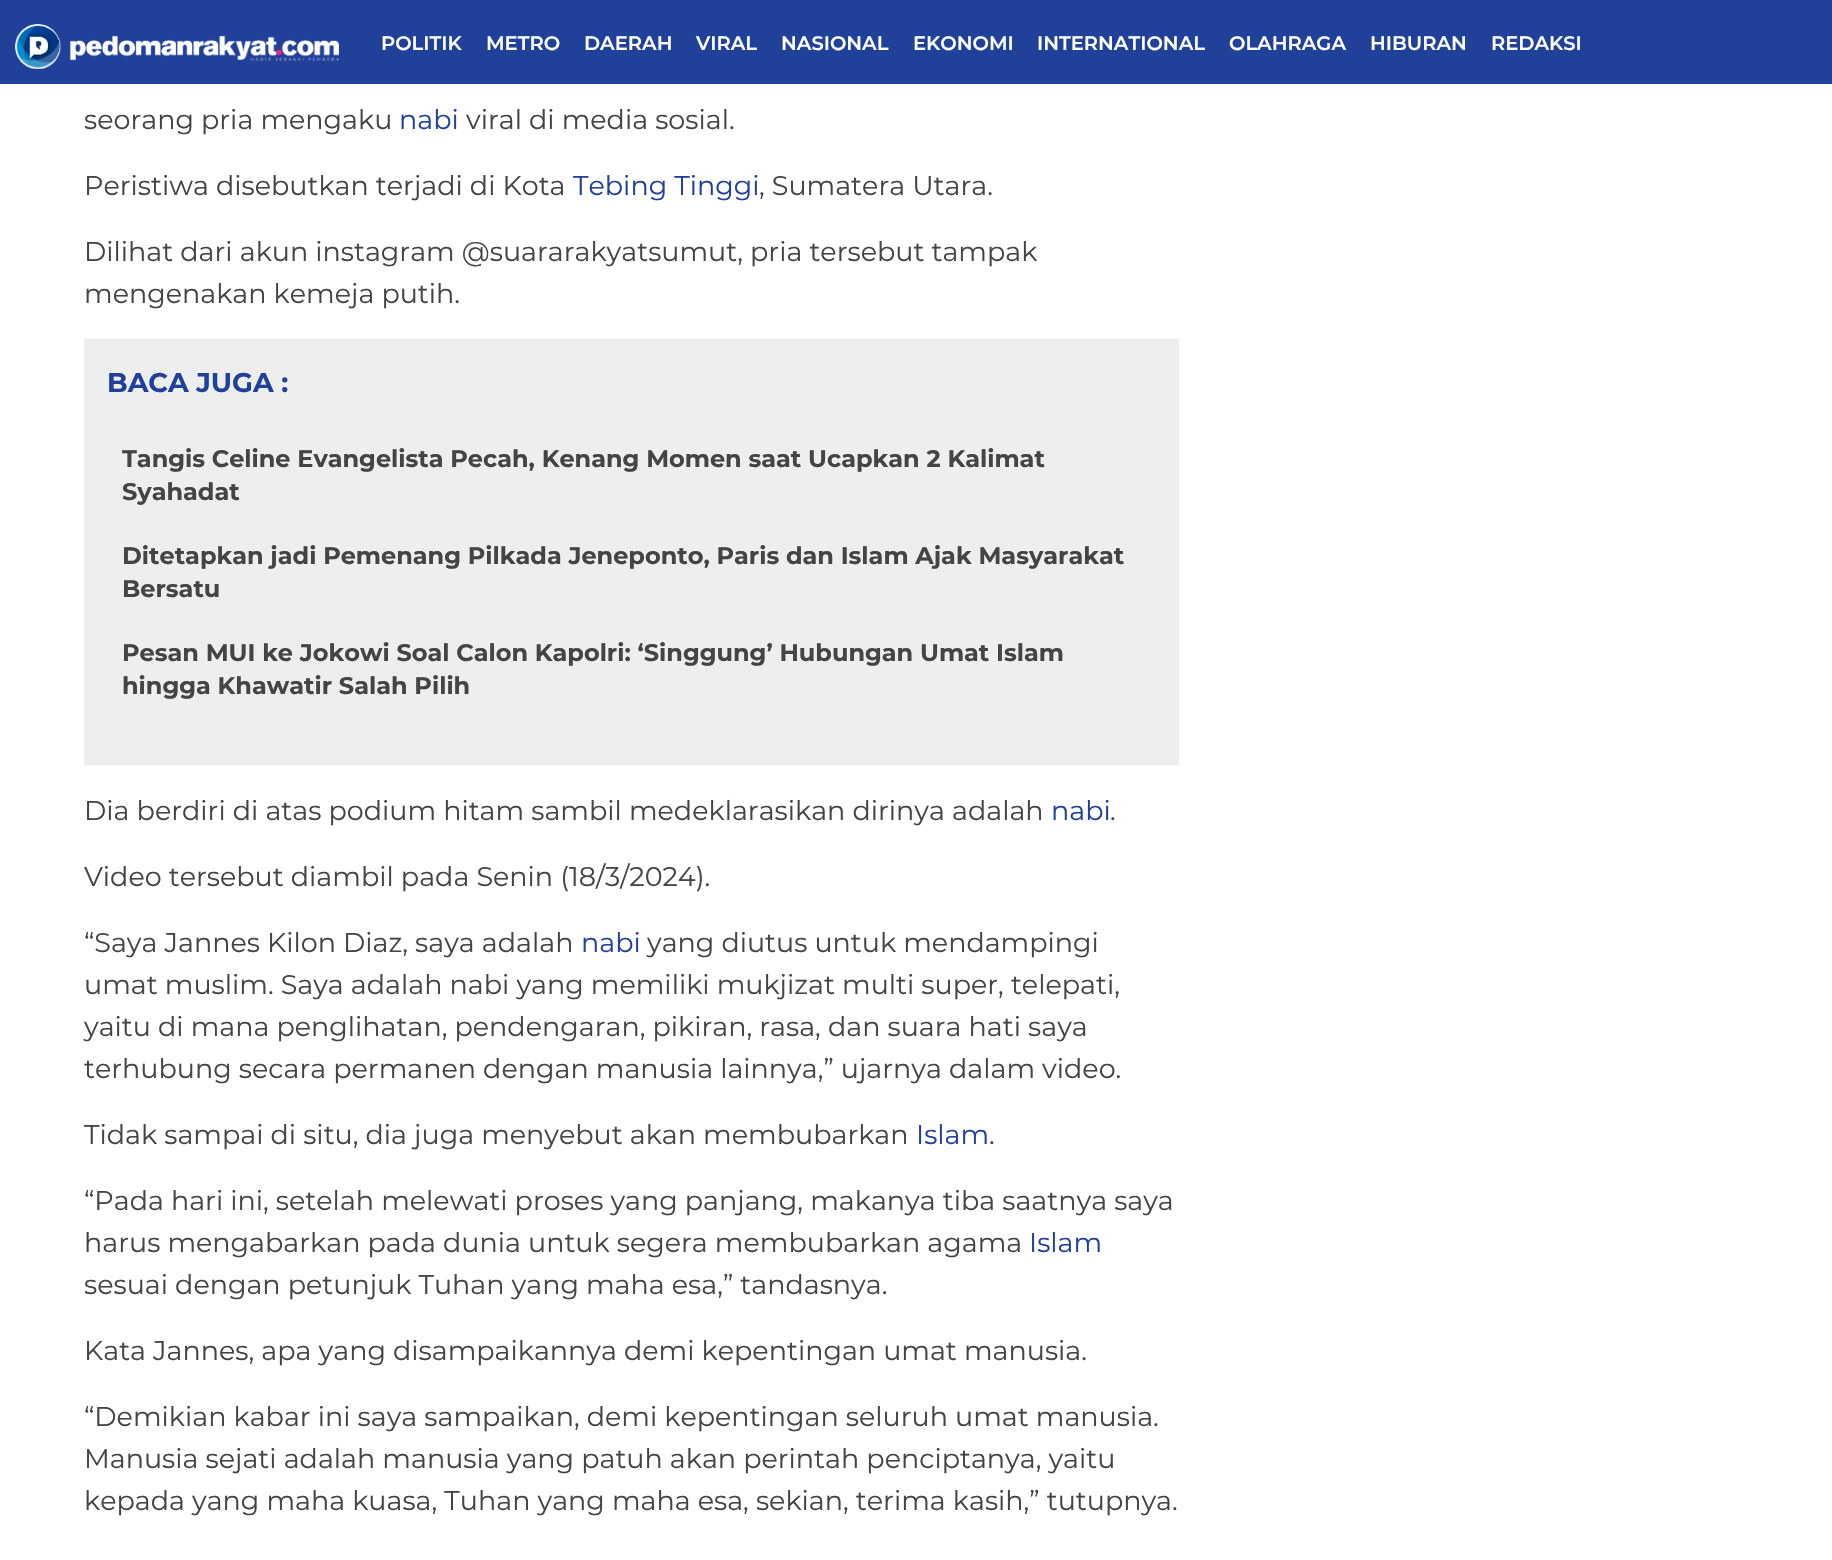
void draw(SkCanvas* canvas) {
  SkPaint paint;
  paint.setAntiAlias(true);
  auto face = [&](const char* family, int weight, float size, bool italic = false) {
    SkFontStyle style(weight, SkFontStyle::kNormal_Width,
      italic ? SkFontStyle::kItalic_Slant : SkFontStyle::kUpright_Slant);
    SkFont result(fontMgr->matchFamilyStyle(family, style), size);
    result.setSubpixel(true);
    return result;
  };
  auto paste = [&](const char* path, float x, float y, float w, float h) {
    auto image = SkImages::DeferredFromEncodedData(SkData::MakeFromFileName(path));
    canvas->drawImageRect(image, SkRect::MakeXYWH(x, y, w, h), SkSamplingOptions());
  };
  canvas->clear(0xffffffff);
  paint.setColor(0xff21409a);
  canvas->drawRect(SkRect::MakeXYWH(0, 0, 1832, 84), paint);
  paste("img/1.png", 15, 24, 324, 45);
  paint.setColor(0xffeeeeee);
  canvas->drawRect(SkRect::MakeXYWH(84, 339, 1095, 426), paint);
  auto f0 = face("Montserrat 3", 100, 19.5f);
  paint.setColor(0xffffffff);
  {
    const struct { const char* s; float x, y; } items[] = {
      {"POLITIK", 381, 50},
      {"METRO", 486, 50},
      {"DAERAH", 584, 50},
      {"VIRAL", 696, 50},
      {"NASIONAL", 781, 50},
      {"EKONOMI", 913, 50},
      {"INTERNATIONAL", 1037, 50},
      {"OLAHRAGA", 1229, 50},
      {"HIBURAN", 1370, 50},
      {"REDAKSI", 1491, 50},
    };
    for (auto [s, x, y] : items) {
      canvas->drawString(s, x, y, f0, paint);
    }
  }
  auto f1 = face("Montserrat", 100, 27);
  paint.setColor(0xff444444);
  canvas->drawString("seorang pria mengaku", 84, 129, f1, paint);
  paint.setColor(0xff21409a);
  canvas->drawString("nabi", 399, 129, f1, paint);
  paint.setColor(0xff444444);
  canvas->drawString("viral di media sosial.", 466, 129, f1, paint);
  canvas->drawString("Peristiwa disebutkan terjadi di Kota", 84, 195, f1, paint);
  paint.setColor(0xff21409a);
  canvas->drawString("Tebing Tinggi", 573, 195, f1, paint);
  paint.setColor(0xff444444);
  {
    const struct { const char* s; float x, y; } items[] = {
      {", Sumatera Utara.", 759, 195},
      {"Dilihat dari akun instagram @suararakyatsumut, pria tersebut tampak", 84, 261},
      {"mengenakan kemeja putih.", 84, 303},
    };
    for (auto [s, x, y] : items) {
      canvas->drawString(s, x, y, f1, paint);
    }
  }
  auto f2 = face("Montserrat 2", 100, 27);
  paint.setColor(0xff21409a);
  canvas->drawString("BACA JUGA :", 107, 392, f2, paint);
  canvas->save();
  canvas->clipRect(SkRect::MakeXYWH(122, 443, 1020, 67));
  auto f3 = face("Montserrat 2", 100, 24);
  paint.setColor(0xff444444);
  canvas->drawString("Tangis Celine Evangelista Pecah, Kenang Momen saat Ucapkan 2 Kalimat", 122, 467, f3, paint);
  canvas->restore();
  {
    const struct { const char* s; float x, y; } items[] = {
      {"Syahadat", 122, 500},
      {"Ditetapkan jadi Pemenang Pilkada Jeneponto, Paris dan Islam Ajak Masyarakat", 122, 564},
      {"Bersatu", 122, 597},
      {"Pesan MUI ke Jokowi Soal Calon Kapolri: ‘Singgung’ Hubungan Umat Islam", 122, 661},
      {"hingga Khawatir Salah Pilih", 122, 694},
    };
    for (auto [s, x, y] : items) {
      canvas->drawString(s, x, y, f3, paint);
    }
  }
  canvas->drawString("Dia berdiri di atas podium hitam sambil medeklarasikan dirinya adalah", 84, 820, f1, paint);
  paint.setColor(0xff21409a);
  canvas->drawString("nabi", 1051, 820, f1, paint);
  paint.setColor(0xff444444);
  {
    const struct { const char* s; float x, y; } items[] = {
      {".", 1110, 820},
      {"Video tersebut diambil pada Senin (18/3/2024).", 84, 886},
      {"“Saya Jannes Kilon Diaz, saya adalah", 84, 952},
    };
    for (auto [s, x, y] : items) {
      canvas->drawString(s, x, y, f1, paint);
    }
  }
  paint.setColor(0xff21409a);
  canvas->drawString("nabi", 581, 952, f1, paint);
  paint.setColor(0xff444444);
  {
    const struct { const char* s; float x, y; } items[] = {
      {"yang diutus untuk mendampingi", 647, 952},
      {"umat muslim. Saya adalah nabi yang memiliki mukjizat multi super, telepati,", 84, 994},
      {"yaitu di mana penglihatan, pendengaran, pikiran, rasa, dan suara hati saya", 84, 1036},
      {"terhubung secara permanen dengan manusia lainnya,” ujarnya dalam video.", 84, 1078},
      {"Tidak sampai di situ, dia juga menyebut akan membubarkan", 84, 1144},
    };
    for (auto [s, x, y] : items) {
      canvas->drawString(s, x, y, f1, paint);
    }
  }
  paint.setColor(0xff21409a);
  canvas->drawString("Islam", 916, 1144, f1, paint);
  paint.setColor(0xff444444);
  {
    const struct { const char* s; float x, y; } items[] = {
      {".", 989, 1144},
      {"“Pada hari ini, setelah melewati proses yang panjang, makanya tiba saatnya saya", 84, 1210},
      {"harus mengabarkan pada dunia untuk segera membubarkan agama", 84, 1252},
    };
    for (auto [s, x, y] : items) {
      canvas->drawString(s, x, y, f1, paint);
    }
  }
  paint.setColor(0xff21409a);
  canvas->drawString("Islam", 1029, 1252, f1, paint);
  paint.setColor(0xff444444);
  {
    const struct { const char* s; float x, y; } items[] = {
      {"sesuai dengan petunjuk Tuhan yang maha esa,” tandasnya.", 84, 1294},
      {"Kata Jannes, apa yang disampaikannya demi kepentingan umat manusia.", 84, 1360},
      {"“Demikian kabar ini saya sampaikan, demi kepentingan seluruh umat manusia.", 84, 1426},
      {"Manusia sejati adalah manusia yang patuh akan perintah penciptanya, yaitu", 84, 1468},
      {"kepada yang maha kuasa, Tuhan yang maha esa, sekian, terima kasih,” tutupnya.", 84, 1510},
    };
    for (auto [s, x, y] : items) {
      canvas->drawString(s, x, y, f1, paint);
    }
  }
}
